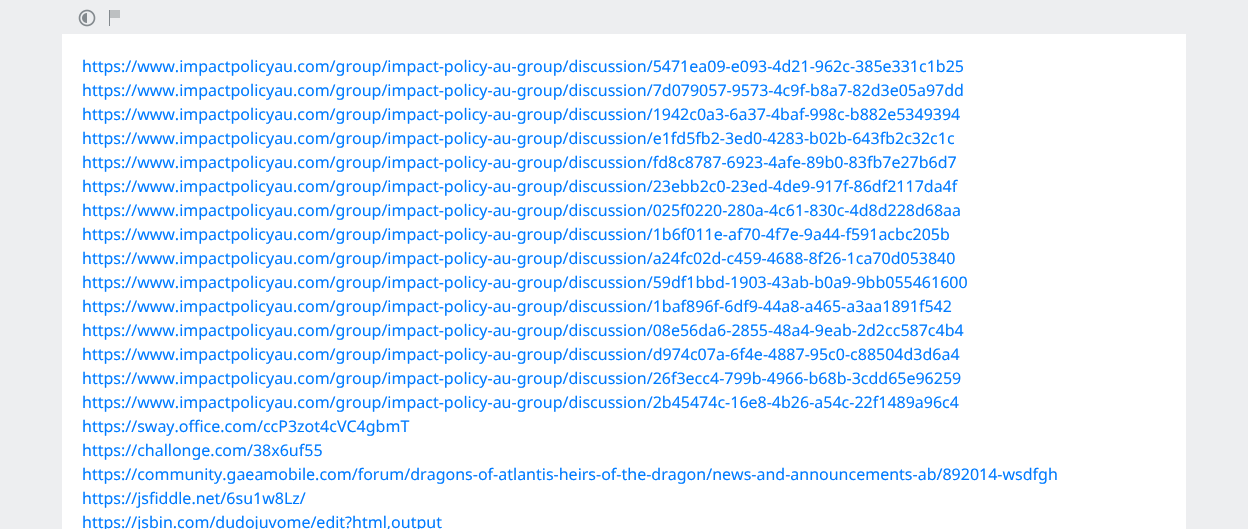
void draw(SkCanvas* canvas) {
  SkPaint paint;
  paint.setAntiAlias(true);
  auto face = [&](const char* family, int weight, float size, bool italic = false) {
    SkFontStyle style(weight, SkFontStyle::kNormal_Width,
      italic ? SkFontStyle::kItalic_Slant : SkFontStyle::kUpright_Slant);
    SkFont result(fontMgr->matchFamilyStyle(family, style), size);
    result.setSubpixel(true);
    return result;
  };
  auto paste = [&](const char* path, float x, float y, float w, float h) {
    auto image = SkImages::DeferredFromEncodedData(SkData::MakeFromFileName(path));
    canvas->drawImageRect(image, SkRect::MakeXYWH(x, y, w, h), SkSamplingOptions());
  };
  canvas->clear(0xffedeef0);
  paste("img/1.png", 78, 9, 18, 18);
  {
    const struct { float x, y, w, h; SkColor color; } items[] = {
      {109, 10, 1, 16, 0xff83898e},
      {110, 10, 10, 8, 0xffbdc0c2},
      {62, 34, 1124, 495, 0xffffffff},
    };
    for (auto [x, y, w, h, color] : items) {
      paint.setColor(color);
      canvas->drawRect(SkRect::MakeXYWH(x, y, w, h), paint);
    }
  }
  auto f0 = face("Noto Sans", 400, 16);
  paint.setColor(0xff007bff);
  {
    const struct { const char* s; float x, y; } items[] = {
      {"https://www.impactpolicyau.com/group/impact-policy-au-group/discussion/5471ea09-e093-4d21-962c-385e331c1b25", 82, 72},
      {"https://www.impactpolicyau.com/group/impact-policy-au-group/discussion/7d079057-9573-4c9f-b8a7-82d3e05a97dd", 82, 96},
      {"https://www.impactpolicyau.com/group/impact-policy-au-group/discussion/1942c0a3-6a37-4baf-998c-b882e5349394", 82, 120},
      {"https://www.impactpolicyau.com/group/impact-policy-au-group/discussion/e1fd5fb2-3ed0-4283-b02b-643fb2c32c1c", 82, 144},
      {"https://www.impactpolicyau.com/group/impact-policy-au-group/discussion/fd8c8787-6923-4afe-89b0-83fb7e27b6d7", 82, 168},
      {"https://www.impactpolicyau.com/group/impact-policy-au-group/discussion/23ebb2c0-23ed-4de9-917f-86df2117da4f", 82, 192},
      {"https://www.impactpolicyau.com/group/impact-policy-au-group/discussion/025f0220-280a-4c61-830c-4d8d228d68aa", 82, 216},
      {"https://www.impactpolicyau.com/group/impact-policy-au-group/discussion/1b6f011e-af70-4f7e-9a44-f591acbc205b", 82, 240},
      {"https://www.impactpolicyau.com/group/impact-policy-au-group/discussion/a24fc02d-c459-4688-8f26-1ca70d053840", 82, 264},
      {"https://www.impactpolicyau.com/group/impact-policy-au-group/discussion/59df1bbd-1903-43ab-b0a9-9bb055461600", 82, 288},
      {"https://www.impactpolicyau.com/group/impact-policy-au-group/discussion/1baf896f-6df9-44a8-a465-a3aa1891f542", 82, 312},
      {"https://www.impactpolicyau.com/group/impact-policy-au-group/discussion/08e56da6-2855-48a4-9eab-2d2cc587c4b4", 82, 336},
      {"https://www.impactpolicyau.com/group/impact-policy-au-group/discussion/d974c07a-6f4e-4887-95c0-c88504d3d6a4", 82, 360},
      {"https://www.impactpolicyau.com/group/impact-policy-au-group/discussion/26f3ecc4-799b-4966-b68b-3cdd65e96259", 82, 384},
      {"https://www.impactpolicyau.com/group/impact-policy-au-group/discussion/2b45474c-16e8-4b26-a54c-22f1489a96c4", 82, 408},
      {"https://sway.office.com/ccP3zot4cVC4gbmT", 82, 432},
      {"https://challonge.com/38x6uf55", 82, 456},
      {"https://community.gaeamobile.com/forum/dragons-of-atlantis-heirs-of-the-dragon/news-and-announcements-ab/892014-wsdfgh", 82, 480},
      {"https://jsfiddle.net/6su1w8Lz/", 82, 504},
      {"https://jsbin.com/dudojuvome/edit?html,output", 82, 528},
    };
    for (auto [s, x, y] : items) {
      canvas->drawString(s, x, y, f0, paint);
    }
  }
}
